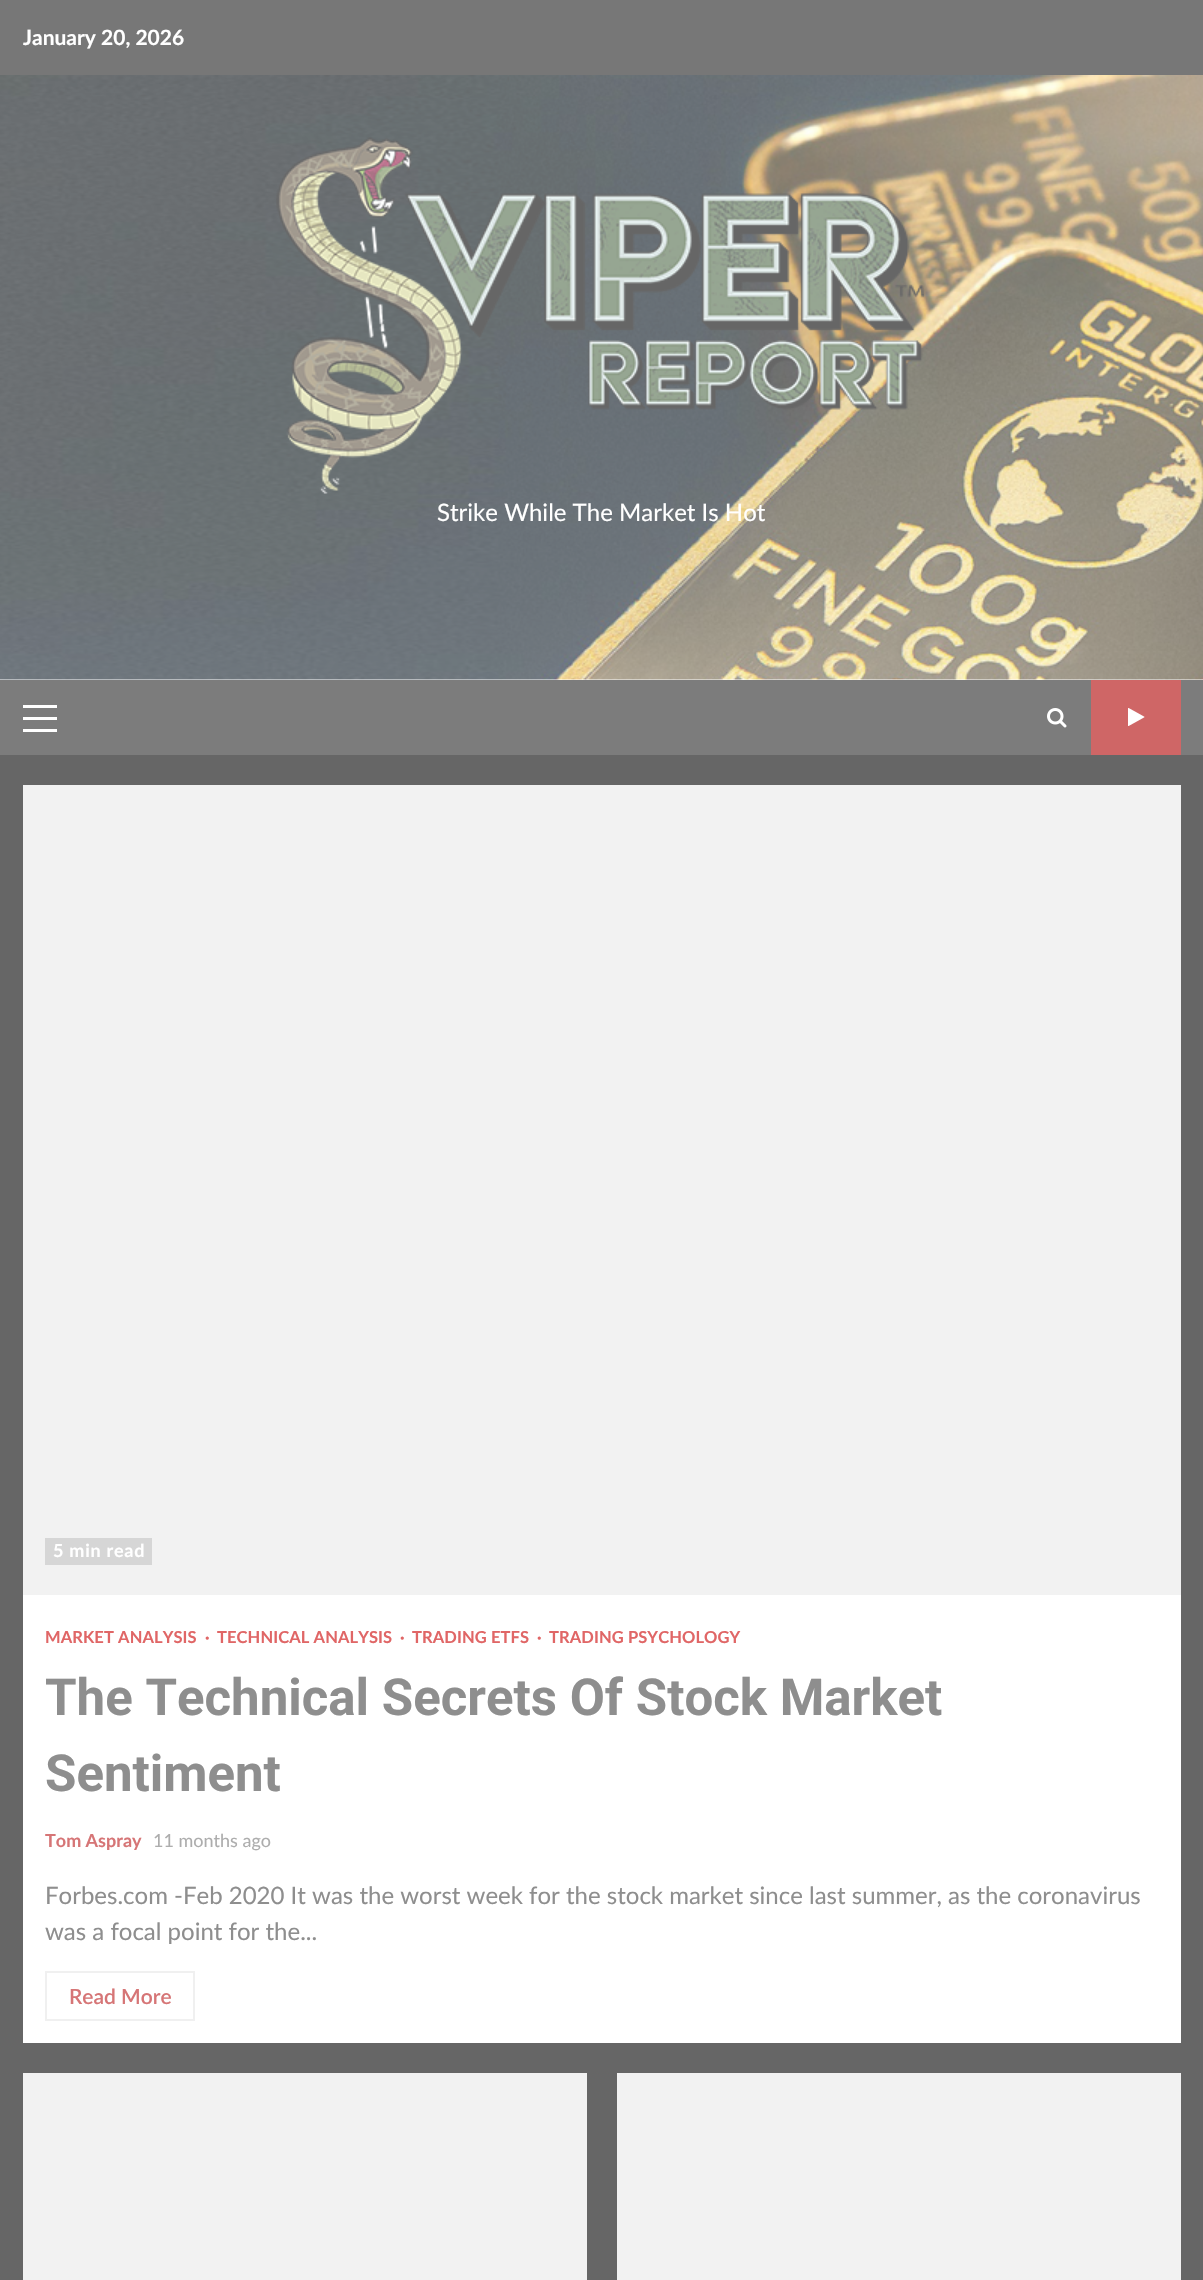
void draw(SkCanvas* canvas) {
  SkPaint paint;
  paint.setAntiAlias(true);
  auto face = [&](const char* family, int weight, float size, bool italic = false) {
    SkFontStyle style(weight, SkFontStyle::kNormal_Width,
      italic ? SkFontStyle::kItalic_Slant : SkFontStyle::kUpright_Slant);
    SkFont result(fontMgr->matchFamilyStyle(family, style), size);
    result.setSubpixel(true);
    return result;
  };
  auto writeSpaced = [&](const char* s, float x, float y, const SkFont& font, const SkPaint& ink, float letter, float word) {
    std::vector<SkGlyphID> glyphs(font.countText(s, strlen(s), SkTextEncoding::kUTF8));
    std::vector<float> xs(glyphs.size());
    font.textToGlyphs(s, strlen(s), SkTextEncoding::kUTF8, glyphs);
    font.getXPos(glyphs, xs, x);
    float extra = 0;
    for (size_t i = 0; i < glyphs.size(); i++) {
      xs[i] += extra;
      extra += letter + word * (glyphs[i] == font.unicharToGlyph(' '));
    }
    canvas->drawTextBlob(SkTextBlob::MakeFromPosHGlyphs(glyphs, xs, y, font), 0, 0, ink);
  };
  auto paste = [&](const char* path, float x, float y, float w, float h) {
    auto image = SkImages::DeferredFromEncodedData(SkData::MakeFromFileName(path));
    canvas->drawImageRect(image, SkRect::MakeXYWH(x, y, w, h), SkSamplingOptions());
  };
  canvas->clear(0xff666666);
  paint.setColor(0xffffffff);
  canvas->drawRect(SkRect::MakeXYWH(0, 679, 1203, 1), paint);
  paint.setColor(0xff777777);
  canvas->drawRect(SkRect::MakeXYWH(0, 0, 1203, 75), paint);
  paste("img/1.png", 0, 75, 1203, 605);
  paste("img/2.png", 276, 137, 649, 357);
  {
    const struct { float x, y, w, h; SkColor color; } items[] = {
      {0, 680, 1203, 75, 0xff7c7c7c},
      {23, 717, 34, 3, 0xffffffff},
      {23, 705, 34, 3, 0xffffffff},
      {23, 729, 34, 3, 0xffffffff},
    };
    for (auto [x, y, w, h, color] : items) {
      paint.setColor(color);
      canvas->drawRect(SkRect::MakeXYWH(x, y, w, h), paint);
    }
  }
  paste("img/3.png", 1047, 708, 20, 20);
  paint.setColor(0xffcf6666);
  canvas->drawRect(SkRect::MakeXYWH(1091, 680, 90, 75), paint);
  paste("img/4.png", 1128, 708, 17, 18);
  {
    const struct { float x, y, w, h; SkColor color; } items[] = {
      {23, 1595, 1158, 448, 0xffffffff},
      {23, 785, 1158, 810, 0xfff2f2f2},
      {45, 1538, 107, 27, 0xffd6d6d6},
    };
    for (auto [x, y, w, h, color] : items) {
      paint.setColor(color);
      canvas->drawRect(SkRect::MakeXYWH(x, y, w, h), paint);
    }
  }
  paint.setStroke(true);
  paint.setStrokeWidth(2);
  paint.setColor(0xfff0f0f0);
  canvas->drawRect(SkRect::MakeXYWH(46, 1972, 148, 48), paint);
  paint.setStroke(false);
  paint.setColor(0xfff2f2f2);
  canvas->drawRect(SkRect::MakeXYWH(23, 2073, 564, 207), paint);
  canvas->drawRect(SkRect::MakeXYWH(617, 2073, 564, 207), paint);
  auto f0 = face("Lato", 700, 21);
  paint.setColor(0xffffffff);
  canvas->drawString("January 20, 2026", 23, 45, f0, paint);
  auto f1 = face("Lato", 400, 24);
  canvas->drawString("Strike While The Market Is Hot", 437, 521, f1, paint);
  auto f2 = face("Lato", 700, 18);
  writeSpaced("5 min read", 53, 1557, f2, paint, 0.75f, 0);
  auto f3 = face("Lato", 700, 16.5f);
  paint.setColor(0xffe06666);
  {
    const struct { const char* s; float x, y; } items[] = {
      {"MARKET ANALYSIS", 45, 1643},
      {"∙", 205, 1643},
      {"TECHNICAL ANALYSIS", 217, 1643},
      {"∙", 400, 1643},
      {"TRADING ETFS", 412, 1643},
      {"∙", 537, 1643},
      {"TRADING PSYCHOLOGY", 549, 1643},
    };
    for (auto [s, x, y] : items) {
      writeSpaced(s, x, y, f3, paint, 0.1f, 0);
    }
  }
  auto f4 = face("Roboto", 700, 51);
  paint.setColor(0xff8e8e8e);
  canvas->drawString("The Technical Secrets Of Stock Market", 45, 1715, f4, paint);
  canvas->drawString("Sentiment", 45, 1791, f4, paint);
  paint.setColor(0xffd67576);
  canvas->drawString("Tom Aspray", 45, 1847, f2, paint);
  auto f5 = face("Lato", 400, 18);
  paint.setColor(0xffadadad);
  canvas->drawString("11 months ago", 153, 1847, f5, paint);
  paint.setColor(0xff8e8e8e);
  canvas->drawString("Forbes.com -Feb 2020 It was the worst week for the stock market since last summer, as the coronavirus", 45, 1904, f1, paint);
  canvas->drawString("was a focal point for the...", 45, 1940, f1, paint);
  auto f6 = face("Lato", 600, 21);
  paint.setColor(0xffd67576);
  canvas->drawString("Read More", 69, 2004, f6, paint);
}
